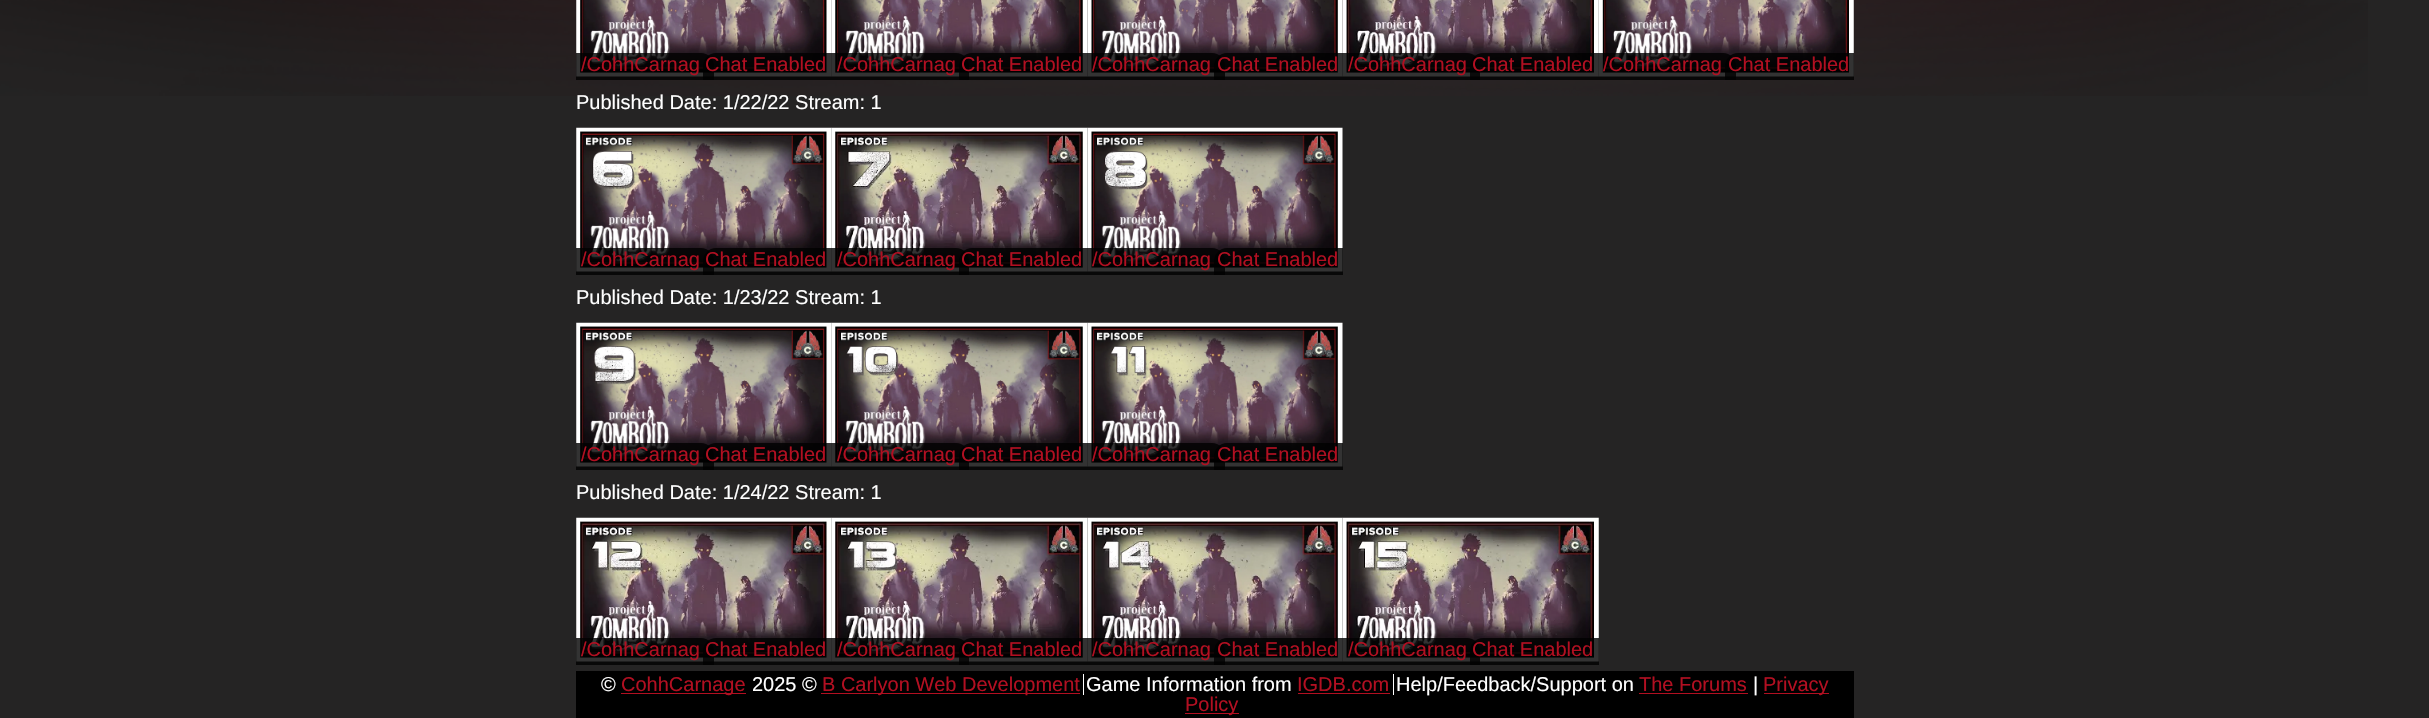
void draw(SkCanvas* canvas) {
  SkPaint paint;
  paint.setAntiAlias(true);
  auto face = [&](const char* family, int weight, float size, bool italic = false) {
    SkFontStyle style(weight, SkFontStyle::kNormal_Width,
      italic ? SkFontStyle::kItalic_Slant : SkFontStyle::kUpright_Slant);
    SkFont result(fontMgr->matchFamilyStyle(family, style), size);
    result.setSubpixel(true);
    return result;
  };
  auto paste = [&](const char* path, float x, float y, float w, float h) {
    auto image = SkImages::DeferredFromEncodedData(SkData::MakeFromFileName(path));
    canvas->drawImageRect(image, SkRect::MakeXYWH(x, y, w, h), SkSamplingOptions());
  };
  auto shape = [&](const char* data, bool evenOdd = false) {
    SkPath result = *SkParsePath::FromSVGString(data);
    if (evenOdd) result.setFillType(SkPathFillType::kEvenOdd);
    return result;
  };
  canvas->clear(0xff252424);
  paste("img/1.png", 0, 0, 2368, 96);
  paste("img/2.png", 576, 0, 256, 77);
  paint.setColor(0xcc000000);
  canvas->drawPath(shape("M576 53H701C708 53 714 59 714 66V80H576Z"), paint);
  canvas->drawPath(shape("M716 53H831V80H703V66C703 59 709 53 716 53Z"), paint);
  paste("img/3.png", 831, 0, 257, 77);
  canvas->drawPath(shape("M831 53H956C963 53 969 59 969 66V80H831Z"), paint);
  paste("img/4.png", 1087, 0, 256, 77);
  canvas->drawPath(shape("M972 53H1088V80H959V66C959 59 965 53 972 53Z"), paint);
  canvas->drawPath(shape("M1088 53H1212C1219 53 1225 59 1225 66V80H1088Z"), paint);
  paste("img/5.png", 1342, 0, 257, 77);
  canvas->drawPath(shape("M1227 53H1343V80H1214V66C1214 59 1220 53 1227 53Z"), paint);
  canvas->drawPath(shape("M1343 53H1467C1474 53 1480 59 1480 66V80H1343Z"), paint);
  paste("img/6.png", 1598, 0, 256, 77);
  canvas->drawPath(shape("M1483 53H1599V80H1470V66C1470 59 1476 53 1483 53Z"), paint);
  canvas->drawPath(shape("M1599 53H1723C1730 53 1736 59 1736 66V80H1599Z"), paint);
  canvas->drawPath(shape("M1738 53H1854V80H1725V66C1725 59 1731 53 1738 53Z"), paint);
  paste("img/7.png", 576, 127, 256, 145);
  canvas->drawPath(shape("M576 248H701C708 248 714 254 714 261V275H576Z"), paint);
  canvas->drawPath(shape("M716 248H831V275H703V261C703 254 709 248 716 248Z"), paint);
  paste("img/8.png", 831, 127, 257, 145);
  canvas->drawPath(shape("M831 248H956C963 248 969 254 969 261V275H831Z"), paint);
  paste("img/9.png", 1087, 127, 256, 145);
  canvas->drawPath(shape("M972 248H1088V275H959V261C959 254 965 248 972 248Z"), paint);
  canvas->drawPath(shape("M1088 248H1212C1219 248 1225 254 1225 261V275H1088Z"), paint);
  canvas->drawPath(shape("M1227 248H1343V275H1214V261C1214 254 1220 248 1227 248Z"), paint);
  paste("img/10.png", 576, 322, 256, 145);
  canvas->drawPath(shape("M576 443H701C708 443 714 449 714 456V470H576Z"), paint);
  canvas->drawPath(shape("M716 443H831V470H703V456C703 449 709 443 716 443Z"), paint);
  paste("img/11.png", 831, 322, 257, 145);
  canvas->drawPath(shape("M831 443H956C963 443 969 449 969 456V470H831Z"), paint);
  paste("img/12.png", 1087, 322, 256, 145);
  canvas->drawPath(shape("M972 443H1088V470H959V456C959 449 965 443 972 443Z"), paint);
  canvas->drawPath(shape("M1088 443H1212C1219 443 1225 449 1225 456V470H1088Z"), paint);
  canvas->drawPath(shape("M1227 443H1343V470H1214V456C1214 449 1220 443 1227 443Z"), paint);
  paste("img/13.png", 576, 517, 256, 145);
  canvas->drawPath(shape("M576 638H701C708 638 714 644 714 651V665H576Z"), paint);
  canvas->drawPath(shape("M716 638H831V665H703V651C703 644 709 638 716 638Z"), paint);
  paste("img/14.png", 831, 517, 257, 145);
  canvas->drawPath(shape("M831 638H956C963 638 969 644 969 651V665H831Z"), paint);
  paste("img/15.png", 1087, 517, 256, 145);
  canvas->drawPath(shape("M972 638H1088V665H959V651C959 644 965 638 972 638Z"), paint);
  canvas->drawPath(shape("M1088 638H1212C1219 638 1225 644 1225 651V665H1088Z"), paint);
  paste("img/16.png", 1342, 517, 257, 145);
  canvas->drawPath(shape("M1227 638H1343V665H1214V651C1214 644 1220 638 1227 638Z"), paint);
  canvas->drawPath(shape("M1343 638H1467C1474 638 1480 644 1480 651V665H1343Z"), paint);
  canvas->drawPath(shape("M1483 638H1599V665H1470V651C1470 644 1476 638 1483 638Z"), paint);
  {
    const struct { float x, y, w, h; SkColor color; } items[] = {
      {576, 671, 1278, 47, 0xff000000},
      {621, 693, 125, 1, 0xffb20f21},
      {1083, 674, 1, 21, 0xffffffff},
      {821, 693, 259, 1, 0xffb20f21},
      {1393, 674, 1, 21, 0xffffffff},
      {1298, 693, 92, 1, 0xffb20f21},
      {1639, 693, 109, 1, 0xffb20f21},
      {1764, 693, 65, 1, 0xffb20f21},
      {1185, 713, 54, 1, 0xffb20f21},
    };
    for (auto [x, y, w, h, color] : items) {
      paint.setColor(color);
      canvas->drawRect(SkRect::MakeXYWH(x, y, w, h), paint);
    }
  }
  auto f0 = face("Liberation Sans", 400, 20);
  {
    const struct { const char* s; float x, y; } items[] = {
      {"/CohhCarnag", 581, 71},
      {"Chat Enabled", 705, 71},
      {"/CohhCarnag", 837, 71},
      {"Chat Enabled", 961, 71},
      {"/CohhCarnag", 1092, 71},
      {"Chat Enabled", 1217, 71},
      {"/CohhCarnag", 1348, 71},
      {"Chat Enabled", 1472, 71},
      {"/CohhCarnag", 1603, 71},
      {"Chat Enabled", 1728, 71},
    };
    for (auto [s, x, y] : items) {
      canvas->drawString(s, x, y, f0, paint);
    }
  }
  paint.setColor(0xffffffff);
  canvas->drawString("Published Date: 1/22/22 Stream: 1", 576, 109, f0, paint);
  paint.setColor(0xffb20f21);
  {
    const struct { const char* s; float x, y; } items[] = {
      {"/CohhCarnag", 581, 266},
      {"Chat Enabled", 705, 266},
      {"/CohhCarnag", 837, 266},
      {"Chat Enabled", 961, 266},
      {"/CohhCarnag", 1092, 266},
      {"Chat Enabled", 1217, 266},
    };
    for (auto [s, x, y] : items) {
      canvas->drawString(s, x, y, f0, paint);
    }
  }
  paint.setColor(0xffffffff);
  canvas->drawString("Published Date: 1/23/22 Stream: 1", 576, 304, f0, paint);
  paint.setColor(0xffb20f21);
  {
    const struct { const char* s; float x, y; } items[] = {
      {"/CohhCarnag", 581, 461},
      {"Chat Enabled", 705, 461},
      {"/CohhCarnag", 837, 461},
      {"Chat Enabled", 961, 461},
      {"/CohhCarnag", 1092, 461},
      {"Chat Enabled", 1217, 461},
    };
    for (auto [s, x, y] : items) {
      canvas->drawString(s, x, y, f0, paint);
    }
  }
  paint.setColor(0xffffffff);
  canvas->drawString("Published Date: 1/24/22 Stream: 1", 576, 499, f0, paint);
  paint.setColor(0xffb20f21);
  {
    const struct { const char* s; float x, y; } items[] = {
      {"/CohhCarnag", 581, 656},
      {"Chat Enabled", 705, 656},
      {"/CohhCarnag", 837, 656},
      {"Chat Enabled", 961, 656},
      {"/CohhCarnag", 1092, 656},
      {"Chat Enabled", 1217, 656},
      {"/CohhCarnag", 1348, 656},
      {"Chat Enabled", 1472, 656},
    };
    for (auto [s, x, y] : items) {
      canvas->drawString(s, x, y, f0, paint);
    }
  }
  paint.setColor(0xffffffff);
  canvas->drawString("©", 601, 691, f0, paint);
  paint.setColor(0xffb20f21);
  canvas->drawString("CohhCarnage", 621, 691, f0, paint);
  paint.setColor(0xffffffff);
  canvas->drawString("2025 ©", 752, 691, f0, paint);
  paint.setColor(0xffb20f21);
  canvas->drawString("B Carlyon Web Development", 822, 691, f0, paint);
  paint.setColor(0xffffffff);
  canvas->drawString("Game Information from", 1086, 691, f0, paint);
  paint.setColor(0xffb20f21);
  canvas->drawString("IGDB.com", 1297, 691, f0, paint);
  paint.setColor(0xffffffff);
  canvas->drawString("Help/Feedback/Support on", 1396, 691, f0, paint);
  paint.setColor(0xffb20f21);
  canvas->drawString("The Forums", 1639, 691, f0, paint);
  paint.setColor(0xffffffff);
  canvas->drawString("|", 1753, 691, f0, paint);
  paint.setColor(0xffb20f21);
  canvas->drawString("Privacy", 1763, 691, f0, paint);
  canvas->drawString("Policy", 1185, 711, f0, paint);
}
